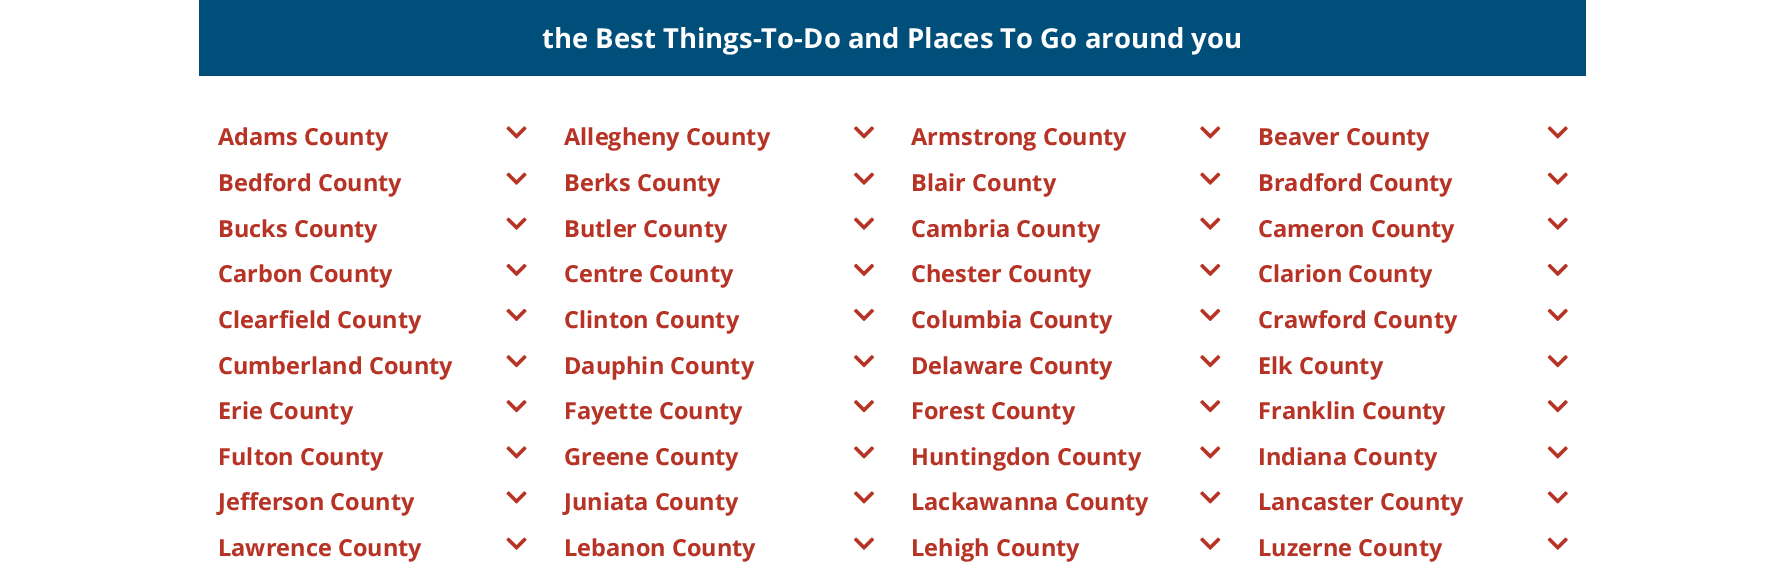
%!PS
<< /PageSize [1785 576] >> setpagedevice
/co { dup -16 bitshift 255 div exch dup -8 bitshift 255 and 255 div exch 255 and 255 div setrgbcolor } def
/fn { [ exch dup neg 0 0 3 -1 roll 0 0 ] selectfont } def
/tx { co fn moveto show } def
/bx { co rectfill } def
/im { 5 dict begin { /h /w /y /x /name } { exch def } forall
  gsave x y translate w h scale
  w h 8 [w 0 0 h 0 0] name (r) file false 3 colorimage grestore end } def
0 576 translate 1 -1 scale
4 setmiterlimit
0 0 1785 576 16#FFFFFF bx
199 0 1387 76 16#004F7B bx
(media/1.raw) 506 126 21 13 im
(media/2.raw) 854 126 20 13 im
(media/3.raw) 1200 126 21 13 im
(media/4.raw) 1547 126 21 13 im
(media/5.raw) 506 172 21 13 im
(media/6.raw) 854 172 20 13 im
(media/7.raw) 1200 172 21 13 im
(media/8.raw) 1547 172 21 13 im
(media/5.raw) 506 217 21 13 im
(media/6.raw) 854 217 20 13 im
(media/7.raw) 1200 217 21 13 im
(media/8.raw) 1547 217 21 13 im
(media/9.raw) 506 263 21 13 im
(media/10.raw) 854 263 20 13 im
(media/11.raw) 1200 263 21 13 im
(media/12.raw) 1547 263 21 13 im
(media/9.raw) 506 308 21 13 im
(media/10.raw) 854 308 20 13 im
(media/11.raw) 1200 308 21 13 im
(media/12.raw) 1547 308 21 13 im
(media/13.raw) 506 355 21 13 im
(media/14.raw) 854 355 20 13 im
(media/15.raw) 1200 355 21 13 im
(media/16.raw) 1547 355 21 13 im
(media/13.raw) 506 400 21 13 im
(media/14.raw) 854 400 20 13 im
(media/15.raw) 1200 400 21 13 im
(media/16.raw) 1547 400 21 13 im
(media/1.raw) 506 446 21 13 im
(media/2.raw) 854 446 20 13 im
(media/3.raw) 1200 446 21 13 im
(media/4.raw) 1547 446 21 13 im
(media/1.raw) 506 491 21 13 im
(media/2.raw) 854 491 20 13 im
(media/3.raw) 1200 491 21 13 im
(media/4.raw) 1547 491 21 13 im
(media/5.raw) 506 537 21 13 im
(media/6.raw) 854 537 20 13 im
(media/7.raw) 1200 537 21 13 im
(media/8.raw) 1547 537 21 13 im
(the Best Things-To-Do and Places To Go around you) 542 48 /OpenSans-Bold 27.5 16#FFFFFF tx
(Adams County) 218 145 /OpenSans-Bold 23.5 16#B63325 tx
(Allegheny County) 564 145 /OpenSans-Bold 23.5 16#B63325 tx
(Armstrong County) 911 145 /OpenSans-Bold 23.5 16#B63325 tx
(Beaver County) 1258 145 /OpenSans-Bold 23.5 16#B63325 tx
(Bedford County) 218 191 /OpenSans-Bold 23.5 16#B63325 tx
(Berks County) 564 191 /OpenSans-Bold 23.5 16#B63325 tx
(Blair County) 911 191 /OpenSans-Bold 23.5 16#B63325 tx
(Bradford County) 1258 191 /OpenSans-Bold 23.5 16#B63325 tx
(Bucks County) 218 237 /OpenSans-Bold 23.5 16#B63325 tx
(Butler County) 564 237 /OpenSans-Bold 23.5 16#B63325 tx
(Cambria County) 911 237 /OpenSans-Bold 23.5 16#B63325 tx
(Cameron County) 1258 237 /OpenSans-Bold 23.5 16#B63325 tx
(Carbon County) 218 282 /OpenSans-Bold 23.5 16#B63325 tx
(Centre County) 564 282 /OpenSans-Bold 23.5 16#B63325 tx
(Chester County) 911 282 /OpenSans-Bold 23.5 16#B63325 tx
(Clarion County) 1258 282 /OpenSans-Bold 23.5 16#B63325 tx
(Clearfield County) 218 328 /OpenSans-Bold 23.5 16#B63325 tx
(Clinton County) 564 328 /OpenSans-Bold 23.5 16#B63325 tx
(Columbia County) 911 328 /OpenSans-Bold 23.5 16#B63325 tx
(Crawford County) 1258 328 /OpenSans-Bold 23.5 16#B63325 tx
(Cumberland County) 218 374 /OpenSans-Bold 23.5 16#B63325 tx
(Dauphin County) 564 374 /OpenSans-Bold 23.5 16#B63325 tx
(Delaware County) 911 374 /OpenSans-Bold 23.5 16#B63325 tx
(Elk County) 1258 374 /OpenSans-Bold 23.5 16#B63325 tx
(Erie County) 218 419 /OpenSans-Bold 23.5 16#B63325 tx
(Fayette County) 564 419 /OpenSans-Bold 23.5 16#B63325 tx
(Forest County) 911 419 /OpenSans-Bold 23.5 16#B63325 tx
(Franklin County) 1258 419 /OpenSans-Bold 23.5 16#B63325 tx
(Fulton County) 218 465 /OpenSans-Bold 23.5 16#B63325 tx
(Greene County) 564 465 /OpenSans-Bold 23.5 16#B63325 tx
(Huntingdon County) 911 465 /OpenSans-Bold 23.5 16#B63325 tx
(Indiana County) 1258 465 /OpenSans-Bold 23.5 16#B63325 tx
(Jefferson County) 218 510 /OpenSans-Bold 23.5 16#B63325 tx
(Juniata County) 564 510 /OpenSans-Bold 23.5 16#B63325 tx
(Lackawanna County) 911 510 /OpenSans-Bold 23.5 16#B63325 tx
(Lancaster County) 1258 510 /OpenSans-Bold 23.5 16#B63325 tx
(Lawrence County) 218 556 /OpenSans-Bold 23.5 16#B63325 tx
(Lebanon County) 564 556 /OpenSans-Bold 23.5 16#B63325 tx
(Lehigh County) 911 556 /OpenSans-Bold 23.5 16#B63325 tx
(Luzerne County) 1258 556 /OpenSans-Bold 23.5 16#B63325 tx
showpage
